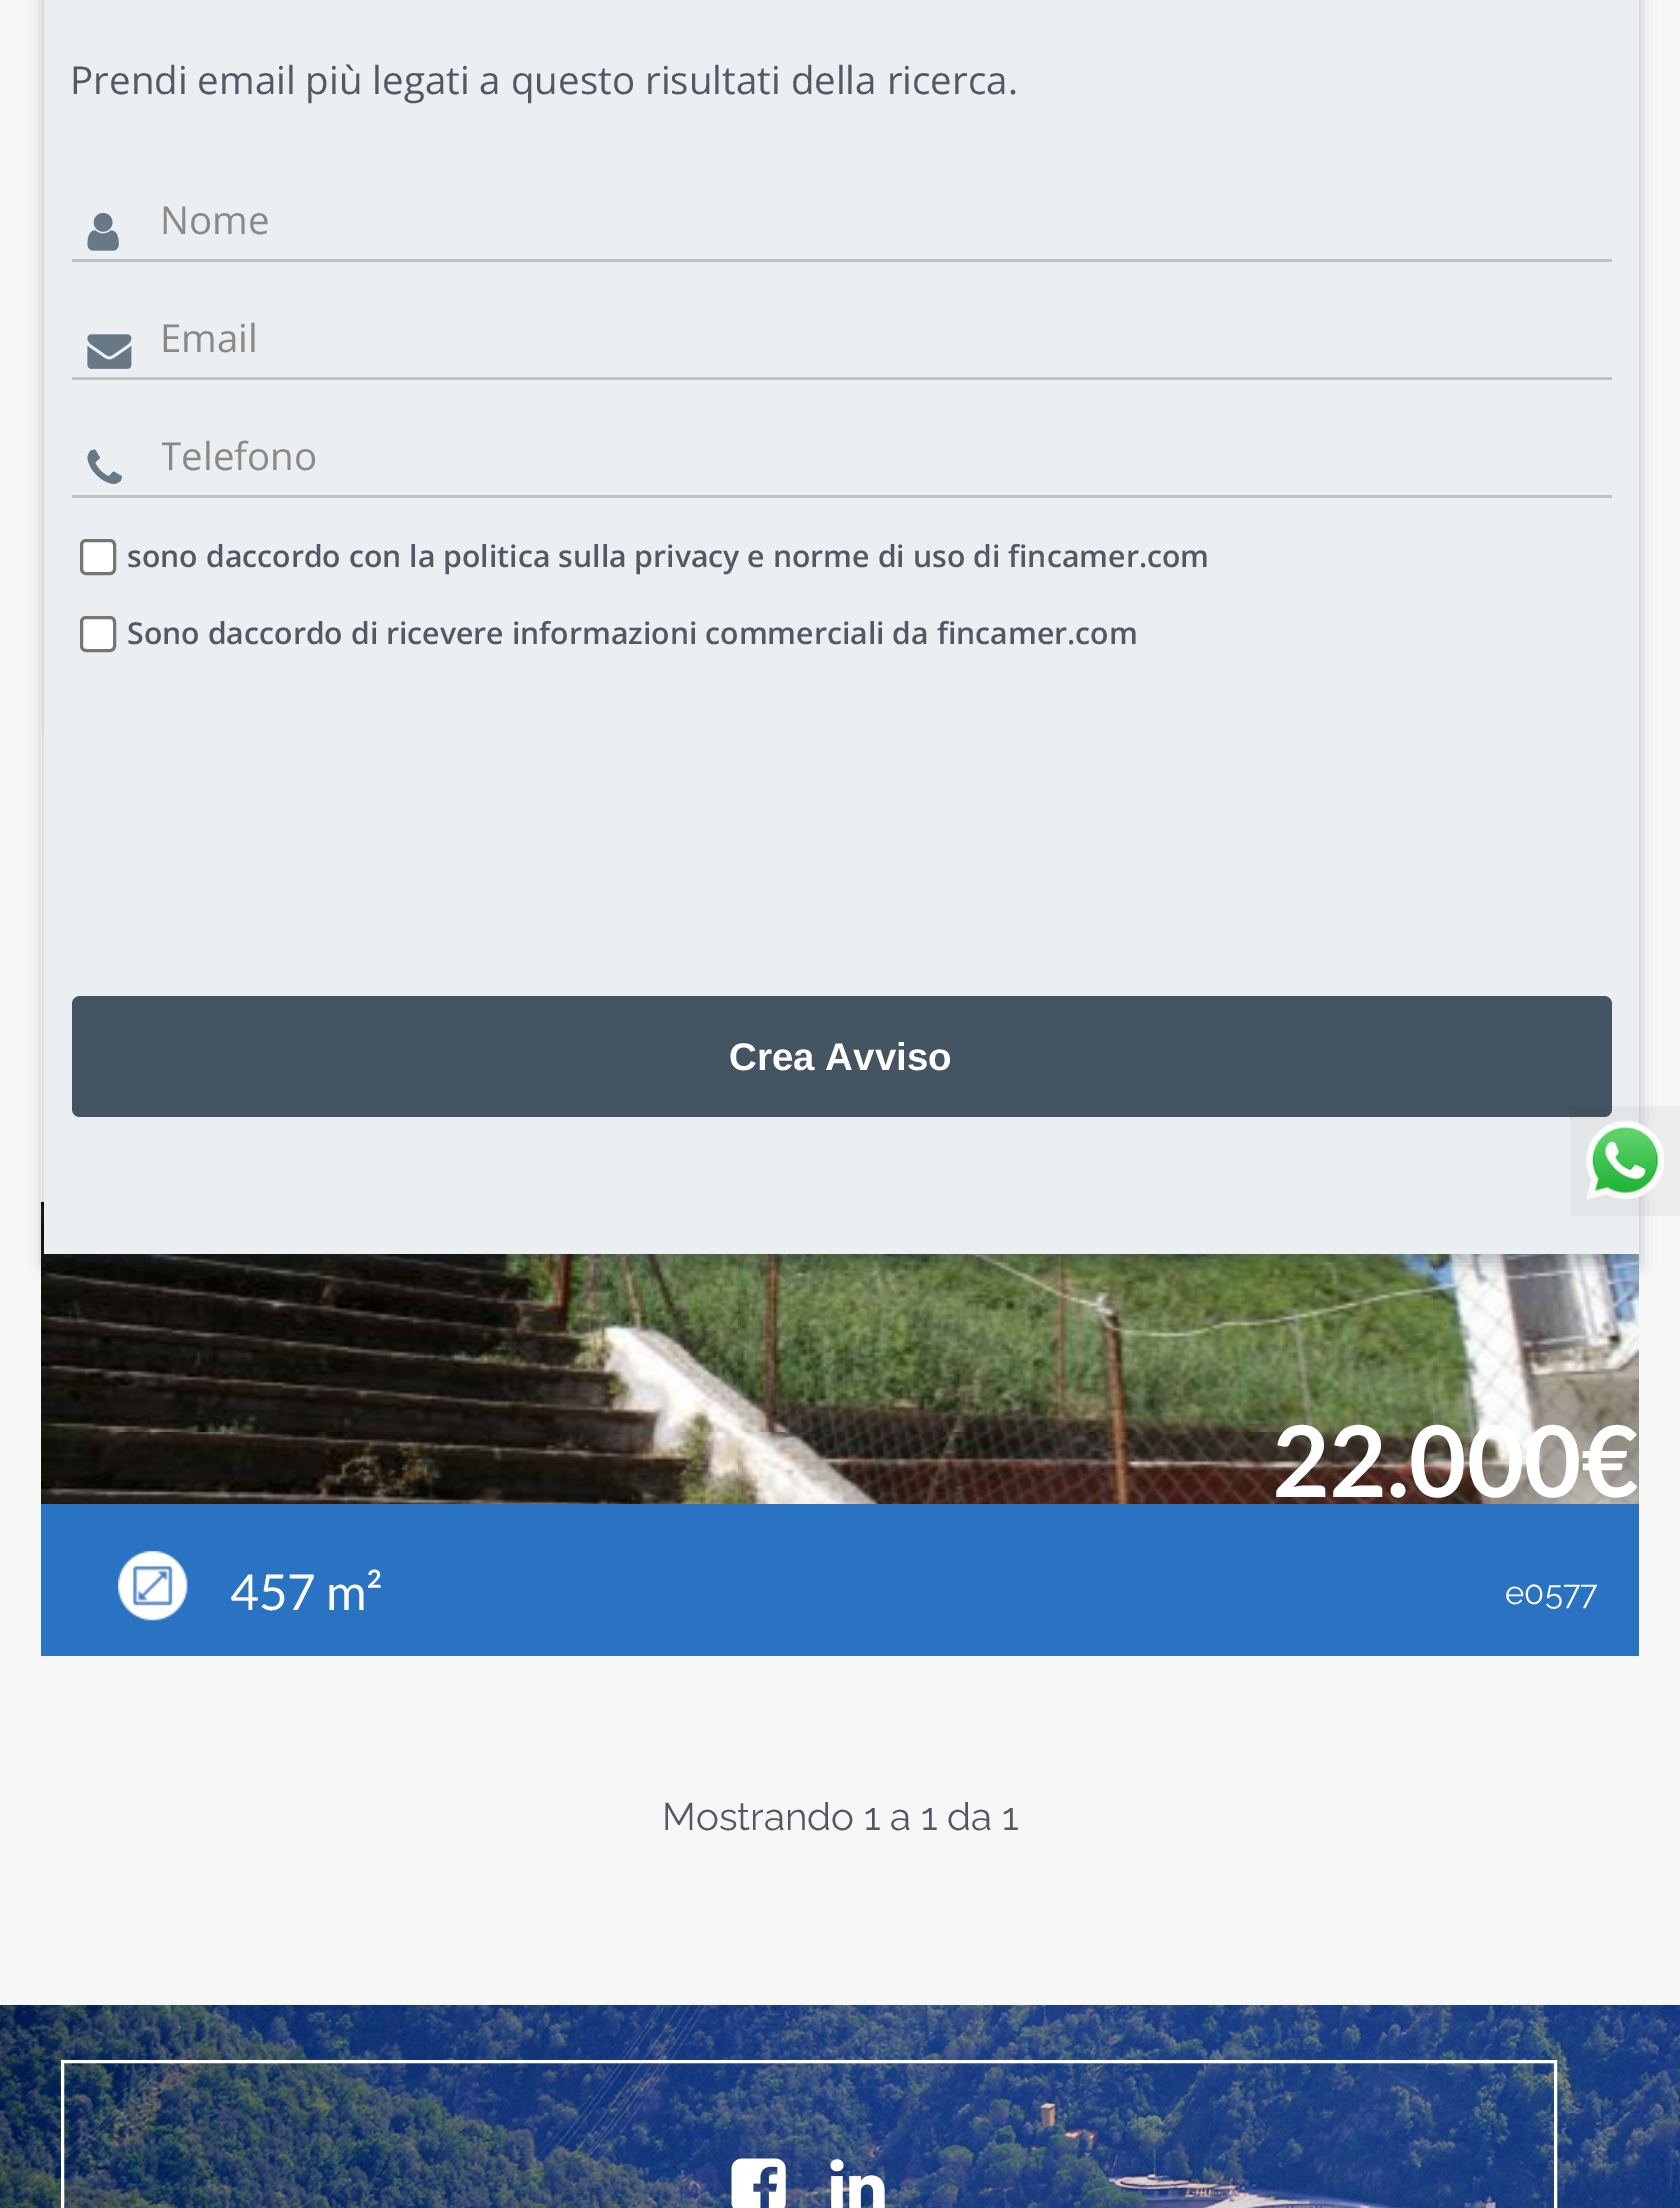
%!PS
<< /PageSize [1680 2208] /PageUsesTransparency true >> setpagedevice
/fl/fill load def
/st/stroke load def
/gs/gsave load def
/gr/grestore load def
/lw/setlinewidth load def
/co { dup -16 bitshift 255 div exch dup -8 bitshift 255 and 255 div exch 255 and 255 div setrgbcolor } def
/fn { [ exch dup neg 0 0 3 -1 roll 0 0 ] selectfont } def
/tx { co fn moveto show } def
/bx { co rectfill } def
/al { dup .setfillconstantalpha .setstrokeconstantalpha } def
/rr { 5 dict begin { /r /h /w /y /x } { exch def } forall
  x r add y moveto x w add y 2 copy h add r arct x w add y h add x 1 index r arct
  x y h add x y r arct x y 2 copy exch w add exch r arct closepath end } def
/sh { 12 dict begin { /a /b /q /h /w /y /x } { exch def } forall gsave /was 0 def
  9 -2 -9 { dup b mul 4 div /e exch def 1 sub .425 mul 2.718 exch exp 1 add a .99 .min exch div /now exch def
    1 1 now sub 1 was sub div sub al /was now def
    w h .min e 2 mul add 0 gt { x e sub y e sub w e 2 mul add h e 2 mul add
      q e add b .6 mul add w h .min 2 div e add .min 0 .max rr fill } if } for grestore end } def
/im { 5 dict begin { /h /w /y /x /name } { exch def } forall
  gsave x y translate w h scale
  w h 8 [w 0 0 h 0 0] name (r) file false 3 colorimage grestore end } def
0 .pushpdf14devicefilter
0 2208 translate 1 -1 scale
4 setmiterlimit
0 0 1680 2208 16#F7F7F7 bx
41 734 3 468 16#FFFFFF bx
(media/5.raw) 41 1202 1598 302 im
16#233238 co
44 -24 1595 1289 0 8 .3 sh
44 0 1595 1254 16#ECEFF1 bx
(media/1.raw) 87 212 32 39 im
72 259 1540 3 16#C2C2C2 bx
(media/2.raw) 87 334 45 35 im
72 377 1540 3 16#C2C2C2 bx
(media/3.raw) 87 449 35 35 im
72 495 1540 3 16#C2C2C2 bx
16#FFFFFF co
81.5 540.5 33 33 4.5 rr gs fl gr
16#767676 co
3 lw
st
16#FFFFFF co
81.5 617.5 33 33 4.5 rr gs fl gr
16#767676 co
st
16#455462 co
72 996 1540 121 8 rr fl
41 1504 1598 152 16#2A72C2 bx
(media/4.raw) 118 1551 70 70 im
0.04 al
1570 1106 110 110 16#000000 bx
1 al
(media/6.raw) 1586 1120 79 80 im
(media/7.raw) 0 2005 1680 203 im
16#FFFFFF co
62.5 2061.5 1493 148 rectstroke
(media/8.raw) 731 2158 55 50 im
(media/9.raw) 830 2159 55 49 im
(Prendi email più legati a questo risultati della ricerca.) 70 94 /OpenSans-Regular 38.5 16#555864 tx
(Nome) 160 234 /OpenSans-Regular 38.5 16#8A8989 tx
(Email) 160 352 /OpenSans-Regular 38.5 16#8A8989 tx
gs
162 429 1422 52 rectclip
(Telefono) 160 470 /OpenSans-Regular 38.5 16#8A8989 tx
gr
(sono daccordo con la politica sulla privacy e norme di uso di fincamer.com) 127 567 /OpenSans-SemiBold 30.25 16#555864 tx
(Sono daccordo di ricevere informazioni commerciali da fincamer.com) 127 644 /OpenSans-SemiBold 30.25 16#555864 tx
(Crea Avviso) 729 1070 /LiberationSans-Bold 38.5 16#FFFFFF tx
(22.000€) 1272 1497 /Lato-Bold 99 16#FFFFFF tx
(457 m²) 230 1610 /Lato-Regular 49.5 16#FFFFFF tx
(e0577) 1505 1604 /Raleway-Thin 33 16#FFFFFF tx
(Mostrando 1 a 1 da 1) 662 1830 /Raleway-Thin 38.5 16#555864 tx
.poppdf14devicefilter showpage
